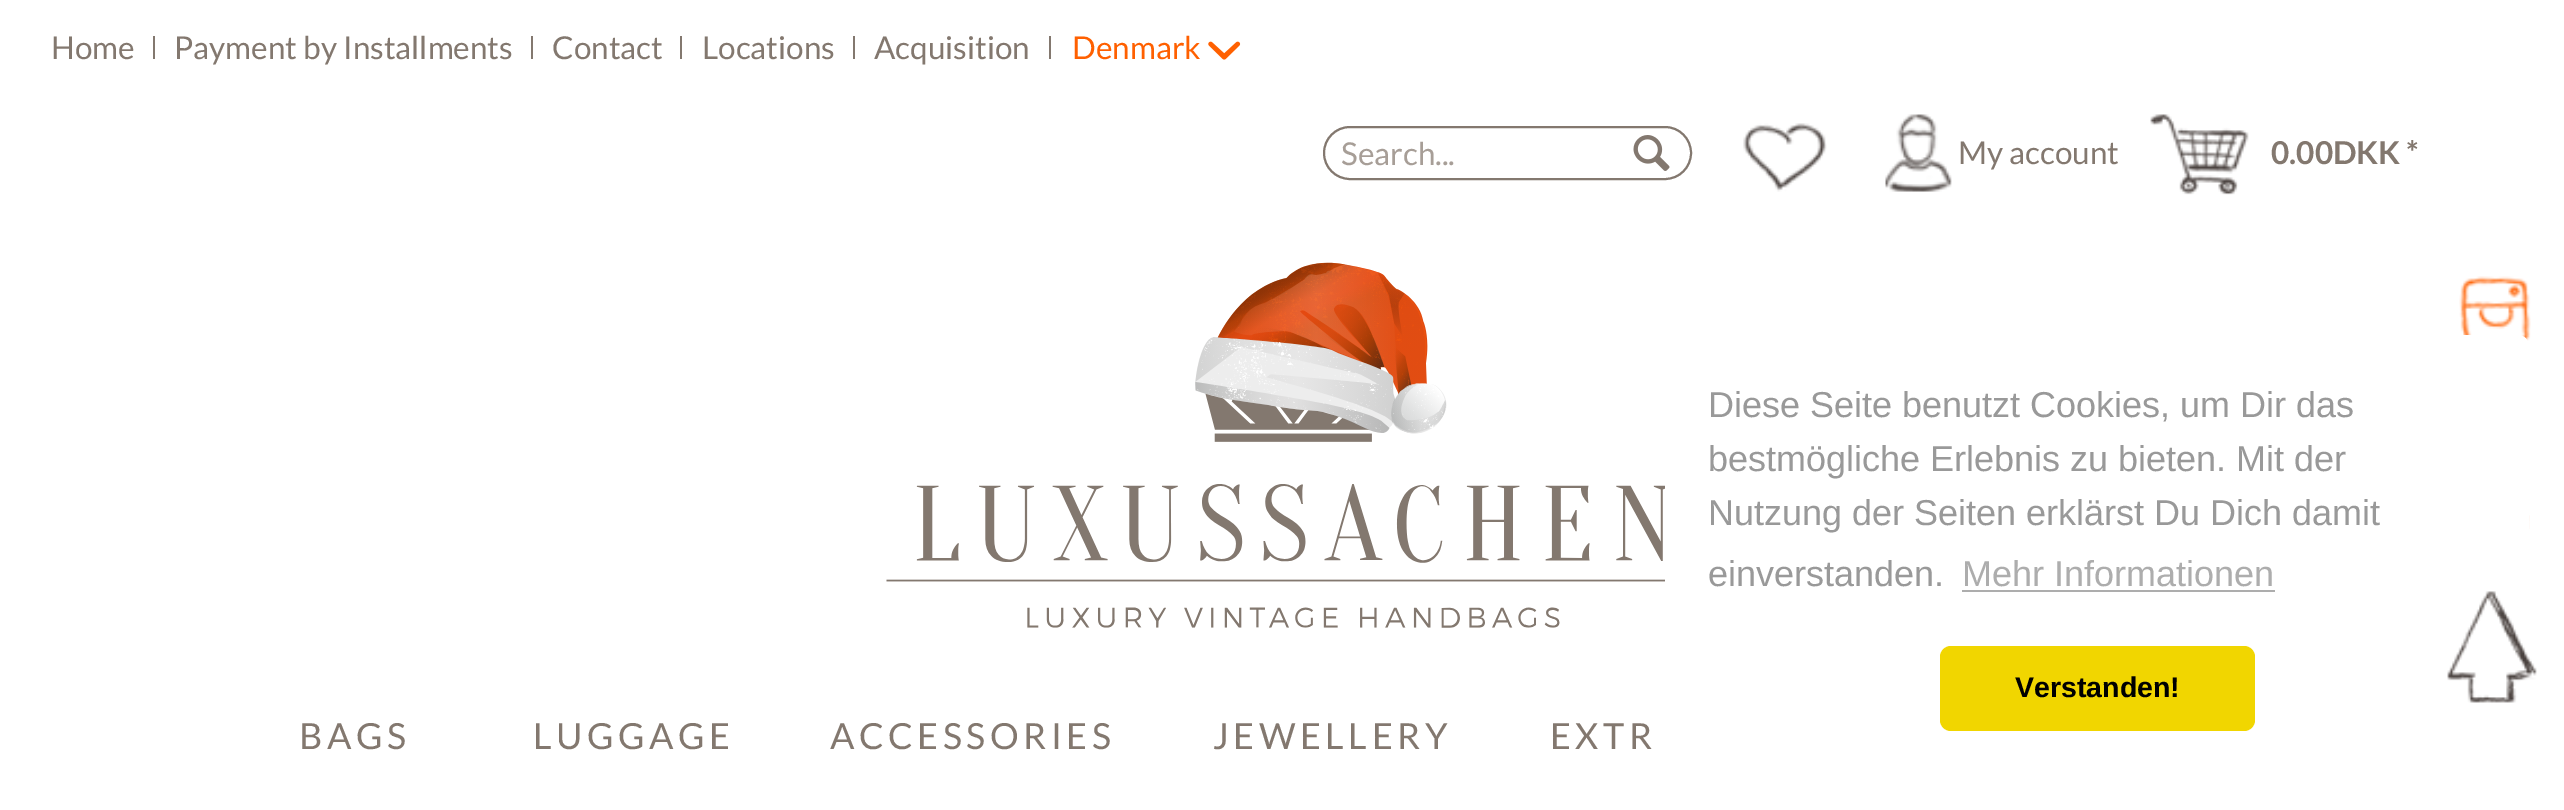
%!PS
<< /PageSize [2564 810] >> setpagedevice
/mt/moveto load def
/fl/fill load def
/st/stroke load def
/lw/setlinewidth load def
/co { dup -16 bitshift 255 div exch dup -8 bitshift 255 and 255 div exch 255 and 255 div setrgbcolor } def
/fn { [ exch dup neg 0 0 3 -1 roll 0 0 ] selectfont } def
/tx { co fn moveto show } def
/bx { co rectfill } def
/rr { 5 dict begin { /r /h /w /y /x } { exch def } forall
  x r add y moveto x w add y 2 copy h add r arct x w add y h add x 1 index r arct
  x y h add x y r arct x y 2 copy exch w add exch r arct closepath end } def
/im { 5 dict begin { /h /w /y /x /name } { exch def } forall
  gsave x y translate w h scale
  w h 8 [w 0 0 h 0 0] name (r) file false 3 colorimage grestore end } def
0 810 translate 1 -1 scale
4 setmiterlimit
0 0 2564 810 16#FFFFFF bx
153 36 2 23 16#83786F bx
531 36 2 23 16#83786F bx
680 36 2 23 16#83786F bx
853 36 2 23 16#83786F bx
1049 36 2 23 16#83786F bx
(media/1.raw) 1208 41 33 19 im
2 lw
1324 127 367 52 26 rr st
(media/2.raw) 1633 135 37 36 im
(media/3.raw) 1743 123 84 69 im
(media/4.raw) 1885 114 67 78 im
(media/5.raw) 2150 114 99 81 im
(media/6.raw) 886 262 779 366 im
(media/8.raw) 2459 276 72 66 im
16#FFFFFF co
1665 335 864 439 11 rr fl
(media/7.raw) 2447 591 90 112 im
(media/9.raw) 2529 515 1 14 im
1962 590 313 2 16#ADADAD bx
16#F1D600 co
1940 646 315 85 11 rr fl
(Home) 51 59 /Lato-Regular 31.5 16#83786F tx
(Payment by Installments) 174 59 /Lato-Regular 31.5 16#83786F tx
(Contact) 552 59 /Lato-Regular 31.5 16#83786F tx
(Locations) 702 59 /Lato-Regular 31.5 16#83786F tx
(Acquisition) 874 59 /Lato-Regular 31.5 16#83786F tx
(Denmark) 1072 59 /Lato-Regular 31.5 16#FF6000 tx
(Search...) 1341 165 /Lato-Regular 31.5 16#A79E97 tx
(My account) 1958 164 /Lato-Regular 31.5 16#83786F tx
(0.00DKK *) 2271 164 /Lato-Bold 31.5 16#83786F tx
/Lato-Regular 36 fn
299 749 mt 4.5 0 (BAGS) ashow
533 749 mt 4.5 0 (LUGGAGE) ashow
830 749 mt 4.5 0 (ACCESSORIES) ashow
1213 749 mt 4.5 0 (JEWELLERY) ashow
1550 749 mt 4.5 0 (EXTR) ashow
(Diese Seite benutzt Cookies, um Dir das) 1708 417 /LiberationSans-Regular 36 16#999999 tx
(bestmögliche Erlebnis zu bieten. Mit der) 1708 471 /LiberationSans-Regular 36 16#999999 tx
(Nutzung der Seiten erklärst Du Dich damit) 1708 525 /LiberationSans-Regular 36 16#999999 tx
(einverstanden.) 1708 586 /LiberationSans-Regular 36 16#999999 tx
(Mehr Informationen) 1962 586 /LiberationSans-Regular 36 16#ADADAD tx
(Verstanden!) 2015 697 /LiberationSans-Bold 28.5 16#000000 tx
showpage
